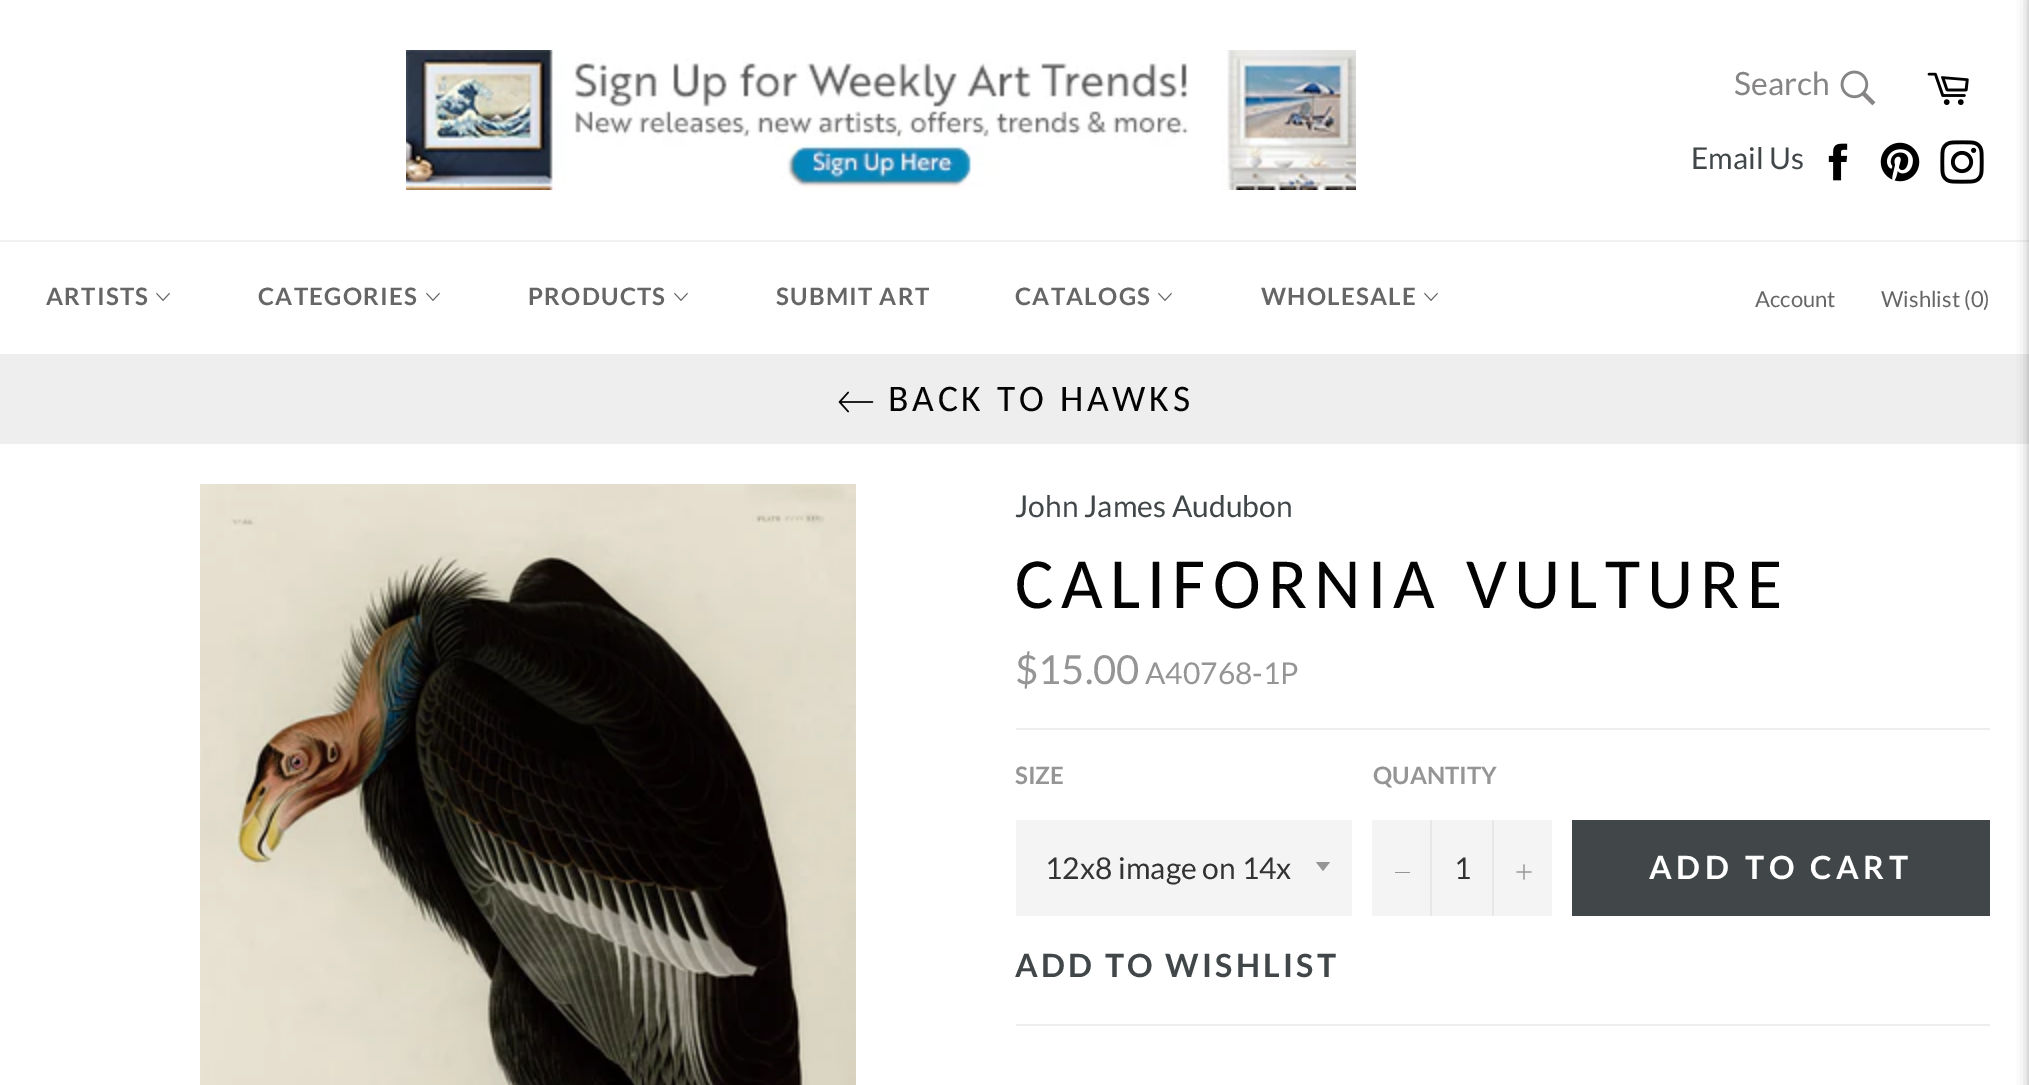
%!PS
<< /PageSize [2029 1085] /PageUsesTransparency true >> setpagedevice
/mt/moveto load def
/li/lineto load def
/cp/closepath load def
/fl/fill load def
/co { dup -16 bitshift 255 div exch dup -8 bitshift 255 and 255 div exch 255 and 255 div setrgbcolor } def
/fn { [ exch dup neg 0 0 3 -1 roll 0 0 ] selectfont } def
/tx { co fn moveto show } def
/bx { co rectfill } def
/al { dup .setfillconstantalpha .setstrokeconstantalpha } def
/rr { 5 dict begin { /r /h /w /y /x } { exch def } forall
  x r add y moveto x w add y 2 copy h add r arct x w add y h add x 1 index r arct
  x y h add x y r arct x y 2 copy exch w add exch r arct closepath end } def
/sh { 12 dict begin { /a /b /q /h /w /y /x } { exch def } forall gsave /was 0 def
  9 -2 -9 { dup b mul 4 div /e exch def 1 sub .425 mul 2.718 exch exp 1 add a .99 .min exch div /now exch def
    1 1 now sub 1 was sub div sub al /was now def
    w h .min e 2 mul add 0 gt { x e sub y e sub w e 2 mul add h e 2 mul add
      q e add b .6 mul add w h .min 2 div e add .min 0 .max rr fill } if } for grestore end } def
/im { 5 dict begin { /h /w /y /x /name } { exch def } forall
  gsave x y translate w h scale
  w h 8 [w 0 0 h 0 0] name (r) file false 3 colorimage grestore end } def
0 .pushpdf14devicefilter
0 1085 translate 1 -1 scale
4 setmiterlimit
0 0 2029 1085 16#FFFFFF bx
(media/1.raw) 406 50 950 140 im
(media/2.raw) 1840 70 36 36 im
(media/3.raw) 1927 72 42 33 im
(media/4.raw) 1828 143 20 38 im
(media/5.raw) 1880 142 40 40 im
(media/6.raw) 1940 140 44 44 im
0 240 2029 2 16#F2F2F2 bx
(media/7.raw) 156 292 14 9 im
(media/7.raw) 426 292 14 9 im
(media/7.raw) 674 292 14 9 im
(media/7.raw) 1158 292 14 9 im
(media/7.raw) 1424 292 14 9 im
0 354 2029 90 16#EEEEEE bx
(media/8.raw) 838 391 36 22 im
(media/9.raw) 200 484 656 601 im
1016 728 974 2 16#EEEEEE bx
1016 820 336 96 16#F4F4F4 bx
16#959595 co
1316 862 mt 1323 871 li 1330 862 li cp fl
1372 820 180 96 16#F4F4F4 bx
1430 820 2 96 16#E7E7E7 bx
1395 872 15 1 16#959595 bx
1492 820 2 96 16#E7E7E7 bx
(media/10.raw) 1516 864 16 16 im
1572 820 418 96 16#414749 bx
1016 1024 974 2 16#EEEEEE bx
16#000000 co
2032 0 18 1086 0 7 .5 sh
(Search) 1734 95 /Lato-Regular 32 16#868484 tx
(Email Us) 1691 169 /Lato-Regular 30 16#414749 tx
/Lato-Bold 24 fn
16#666666 co
46 305 mt 1.25 0 (ARTISTS) ashow
258 305 mt 1.25 0 (CATEGORIES) ashow
528 305 mt 1.25 0 (PRODUCTS) ashow
776 305 mt 1.25 0 (SUBMIT ART) ashow
1015 305 mt 1.25 0 (CATALOGS) ashow
1261 305 mt 1.25 0 (WHOLESALE) ashow
(Account) 1755 307 /Lato-Regular 22 16#666666 tx
(Wishlist \(0\)) 1881 307 /Lato-Regular 22 16#666666 tx
/Carlito-Regular 37.5 fn
16#030303 co
888 411 mt 3.75 0 (BACK TO HAWKS) ashow
(John James Audubon) 1015 517 /Lato-Regular 30 16#414749 tx
/Carlito-Regular 72 fn
16#030303 co
1015 608 mt 7.25 0 (CALIFORNIA VULTURE) ashow
($15.00) 1015 684 /Lato-Regular 40 16#959595 tx
(A40768-1P) 1145 684 /Lato-Regular 30 16#959595 tx
(SIZE) 1015 784 /Lato-Bold 24 16#959595 tx
(12x8 image on 14x) 1045 879 /Lato-Regular 30 16#333333 tx
(QUANTITY) 1373 784 /Lato-Bold 24 16#959595 tx
(1) 1454 879 /Lato-Regular 30 16#333333 tx
/Lato-Bold 32 fn
16#FFFFFF co
1649 879 mt 4.75 0 (ADD TO CART) ashow
16#414749 co
1015 977 mt 3.25 0 (ADD TO WISHLIST) ashow
.poppdf14devicefilter showpage
